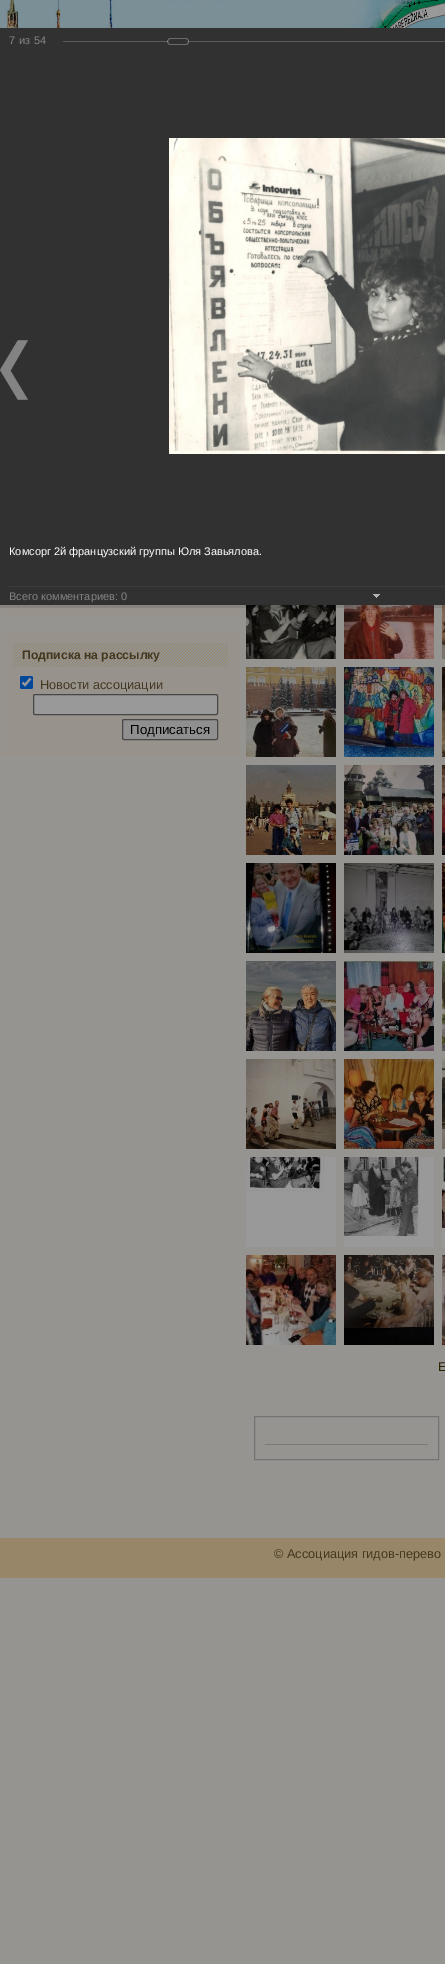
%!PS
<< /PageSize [445 1964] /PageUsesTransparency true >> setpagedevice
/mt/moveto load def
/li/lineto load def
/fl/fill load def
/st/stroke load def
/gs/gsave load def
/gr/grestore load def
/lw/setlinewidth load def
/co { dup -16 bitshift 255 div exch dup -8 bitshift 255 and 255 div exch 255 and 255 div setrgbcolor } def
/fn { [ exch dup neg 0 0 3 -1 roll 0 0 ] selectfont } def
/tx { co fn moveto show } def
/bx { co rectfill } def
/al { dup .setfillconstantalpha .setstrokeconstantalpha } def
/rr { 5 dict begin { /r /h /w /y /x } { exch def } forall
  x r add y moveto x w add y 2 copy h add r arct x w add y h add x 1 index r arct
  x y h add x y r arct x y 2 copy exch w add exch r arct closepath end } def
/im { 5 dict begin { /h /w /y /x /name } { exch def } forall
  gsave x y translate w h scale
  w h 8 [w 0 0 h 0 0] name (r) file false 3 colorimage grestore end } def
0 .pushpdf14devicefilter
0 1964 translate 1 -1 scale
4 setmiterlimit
0 0 445 1964 16#959491 bx
(media/1.raw) 0 0 445 28 im
1 605 239 11 16#97928B bx
(media/7.raw) 246 605 90 54 im
(media/8.raw) 344 605 90 54 im
(media/9.raw) 442 605 3 54 im
0.1 al
0 605 445 3 16#000000 bx
1 al
0 28 445 577 16#313131 bx
63 41 382 1 16#5A5A5A bx
(media/2.raw) 167 38 22 7 im
(media/3.raw) 169 138 276 316 im
9 586 436 1 16#3D3D3D bx
(media/4.raw) 373 594 7 4 im
(media/5.raw) 0 340 28 60 im
1 631 239 125 16#97928B bx
(media/6.raw) 13 643 215 24 im
16#004699 co
20 676 13 13 2 rr fl
16#999999 co
2.1 lw
22.5 682.5 mt 25 685 li 30.5 678.5 li st
33.5 694.5 184 20 1.5 rr gs fl gr
16#474747 co
1 lw
st
16#8F8F8F co
122.5 719.5 95 20 1.5 rr gs fl gr
16#474747 co
st
(media/10.raw) 246 667 90 90 im
(media/11.raw) 344 667 90 90 im
(media/12.raw) 442 667 3 90 im
(media/13.raw) 246 765 90 90 im
(media/14.raw) 344 765 90 90 im
(media/15.raw) 442 765 3 90 im
(media/16.raw) 246 863 90 90 im
(media/17.raw) 344 863 90 90 im
(media/18.raw) 442 863 3 90 im
(media/19.raw) 246 961 90 90 im
(media/20.raw) 344 961 90 90 im
(media/21.raw) 442 961 3 90 im
(media/22.raw) 246 1059 90 90 im
(media/23.raw) 344 1059 90 90 im
(media/24.raw) 442 1059 3 90 im
(media/25.raw) 246 1157 90 90 im
(media/26.raw) 344 1157 90 90 im
(media/27.raw) 442 1157 3 90 im
(media/28.raw) 246 1255 90 90 im
(media/29.raw) 344 1255 90 90 im
(media/30.raw) 442 1255 3 90 im
16#737373 co
254.5 1416.5 184 43 rectstroke
265 1444 163 1 16#7A7A7A bx
0 1538 445 40 16#978667 bx
(7) 9 44 /LiberationSans-Regular 11 16#838383 tx
(из) 19 44 /LiberationSans-Regular 11 16#838383 tx
(54) 34 44 /LiberationSans-Regular 11 16#838383 tx
(Комсорг 2й французский группы Юля Завьялова.) 9 555 /LiberationSans-Regular 11 16#FFFFFF tx
(Всего комментариев: 0) 9 600 /LiberationSans-Regular 11 16#838383 tx
(Подписка на рассылку) 22 659 /LiberationSans-Bold 12.2 16#433720 tx
(Новости ассоциации) 40 689 /LiberationSans-Regular 12.75 16#433720 tx
(Подписаться) 130 734 /LiberationSans-Regular 13.25 16#000000 tx
(Е) 438 1371 /LiberationSans-Regular 12.75 16#2E2303 tx
(© Ассоциация гидов-перево) 274 1558 /LiberationSans-Regular 12.75 16#433720 tx
.poppdf14devicefilter showpage
